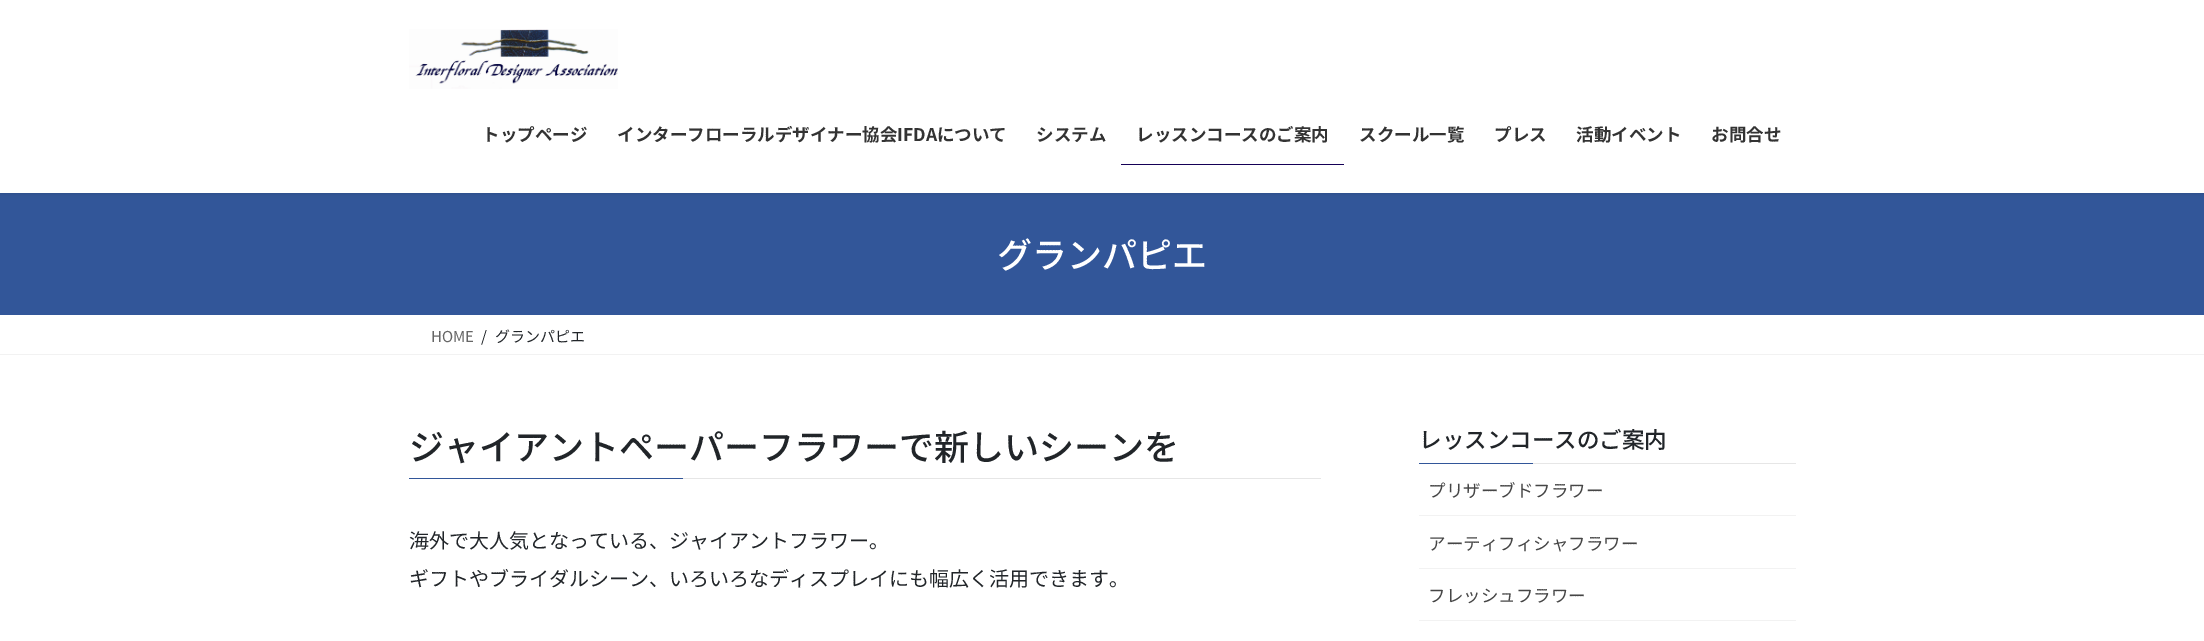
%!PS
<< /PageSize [2204 641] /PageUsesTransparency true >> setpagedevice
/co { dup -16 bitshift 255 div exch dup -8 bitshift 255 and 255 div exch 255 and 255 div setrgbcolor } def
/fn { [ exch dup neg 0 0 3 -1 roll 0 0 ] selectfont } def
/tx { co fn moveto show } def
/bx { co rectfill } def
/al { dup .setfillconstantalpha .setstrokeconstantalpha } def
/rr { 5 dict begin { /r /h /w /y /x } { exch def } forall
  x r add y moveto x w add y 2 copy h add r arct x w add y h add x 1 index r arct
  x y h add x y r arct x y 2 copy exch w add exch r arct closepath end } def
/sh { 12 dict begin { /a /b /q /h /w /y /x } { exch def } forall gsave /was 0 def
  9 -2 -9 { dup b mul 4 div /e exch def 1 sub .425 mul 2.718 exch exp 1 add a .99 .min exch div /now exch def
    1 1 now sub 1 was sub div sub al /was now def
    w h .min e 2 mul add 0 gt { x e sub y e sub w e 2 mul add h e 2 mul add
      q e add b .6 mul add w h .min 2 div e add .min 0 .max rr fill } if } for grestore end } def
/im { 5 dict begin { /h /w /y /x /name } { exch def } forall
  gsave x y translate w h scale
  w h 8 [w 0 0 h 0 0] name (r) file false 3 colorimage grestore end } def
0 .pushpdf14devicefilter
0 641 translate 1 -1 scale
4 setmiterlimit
0 0 2204 641 16#FFFFFF bx
0 193 2204 122 16#325699 bx
16#000000 co
0 1 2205 193 0 2 .1 sh
0 0 2204 193 16#FFFFFF bx
(media/1.raw) 409 29 209 60 im
1121 164 223 1 16#150056 bx
0 354 2204 1 16#F2F2F2 bx
683 478 638 1 16#E6E6E6 bx
409 478 274 1 16#325699 bx
1533 463 263 1 16#E6E6E6 bx
1419 463 114 1 16#325699 bx
1419 515 377 1 16#F2F2F2 bx
1419 568 377 1 16#F2F2F2 bx
1419 620 377 1 16#F2F2F2 bx
(トップページ) 482 141 /NotoSansJP-Bold 17.5 16#333333 tx
(インターフローラルデザイナー協会IFDAについて) 617 141 /NotoSansJP-Bold 17.5 16#333333 tx
(システム) 1036 141 /NotoSansJP-Bold 17.5 16#333333 tx
(レッスンコースのご案内) 1136 141 /NotoSansJP-Bold 17.5 16#333333 tx
(スクール一覧) 1359 141 /NotoSansJP-Bold 17.5 16#333333 tx
(プレス) 1494 141 /NotoSansJP-Bold 17.5 16#333333 tx
(活動イベント) 1576 141 /NotoSansJP-Bold 17.5 16#333333 tx
(お問合せ) 1711 141 /NotoSansJP-Bold 17.5 16#333333 tx
(グランパピエ) 997 268 /NotoSansJP-Medium 35 16#FFFFFF tx
(HOME) 431 342 /NotoSansJP-Regular 15 16#666666 tx
(/) 481 342 /NotoSansJP-Regular 15 16#212529 tx
(グランパピエ) 495 342 /NotoSansJP-Regular 15 16#212529 tx
(ジャイアントペーパーフラワーで新しいシーンを) 409 460 /NotoSansJP-Medium 35 16#212529 tx
(海外で大人気となっている、ジャイアントフラワー。) 409 548 /NotoSansJP-Regular 20 16#212529 tx
(ギフトやブライダルシーン、いろいろなディスプレイにも幅広く活用できます。) 409 586 /NotoSansJP-Regular 20 16#212529 tx
(レッスンコースのご案内) 1419 448 /NotoSansJP-Medium 22.5 16#212529 tx
(プリザーブドフラワー) 1428 497 /NotoSansJP-Regular 17.5 16#464646 tx
(アーティフィシャフラワー) 1428 550 /NotoSansJP-Regular 17.5 16#464646 tx
(フレッシュフラワー) 1428 602 /NotoSansJP-Regular 17.5 16#464646 tx
.poppdf14devicefilter showpage
